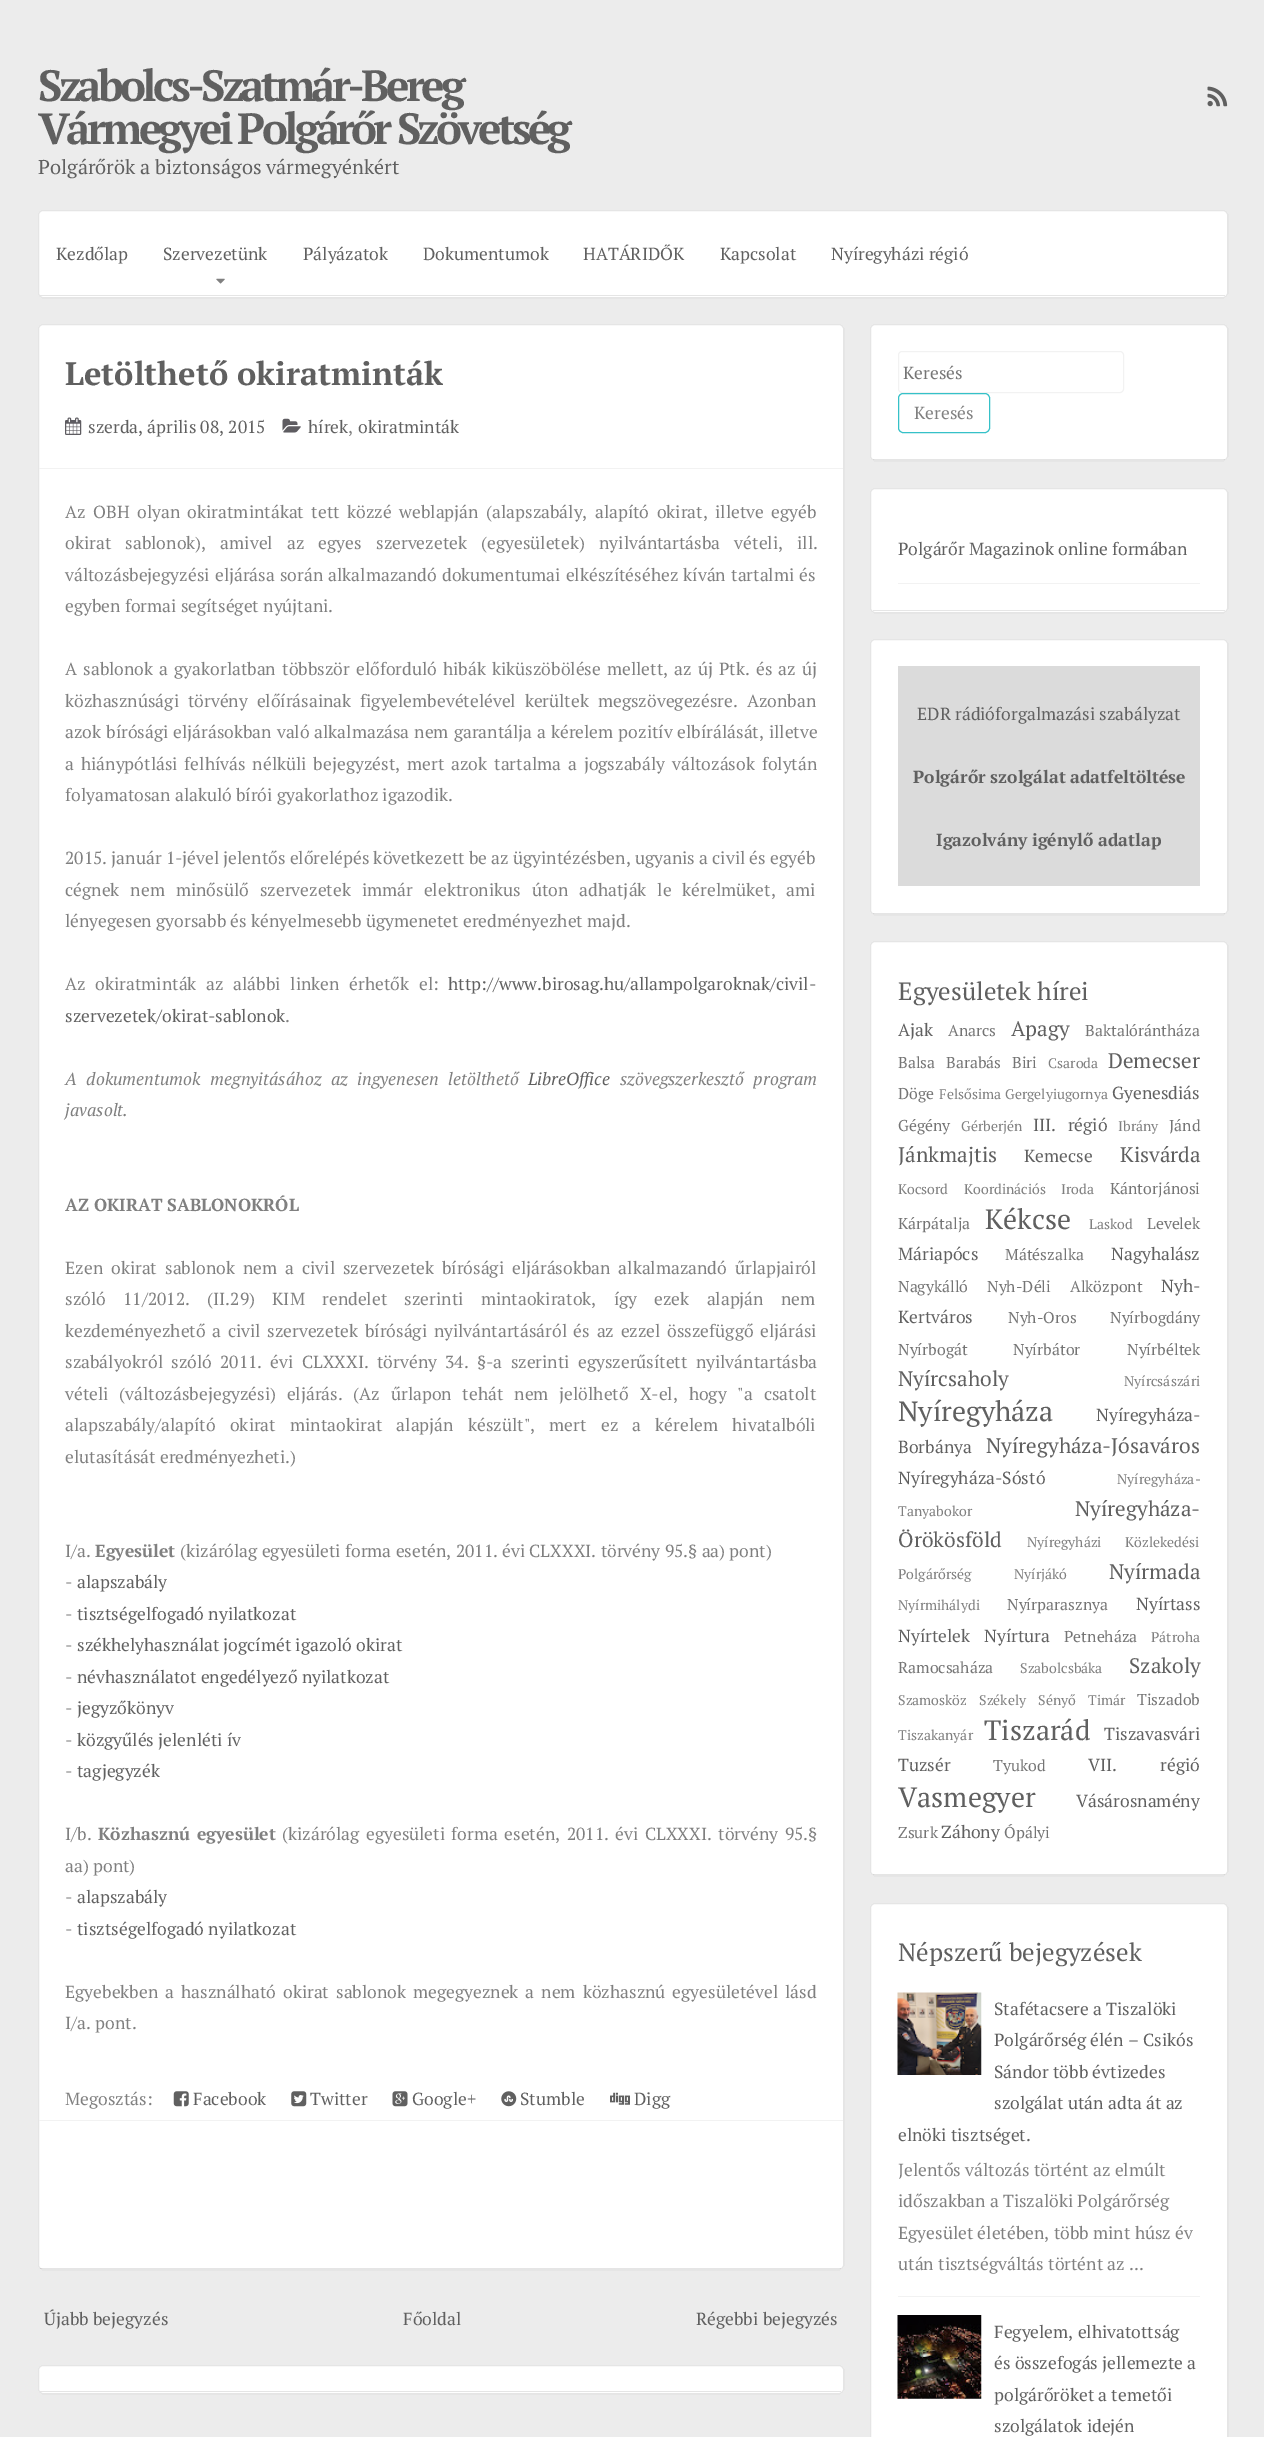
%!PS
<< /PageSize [1264 2437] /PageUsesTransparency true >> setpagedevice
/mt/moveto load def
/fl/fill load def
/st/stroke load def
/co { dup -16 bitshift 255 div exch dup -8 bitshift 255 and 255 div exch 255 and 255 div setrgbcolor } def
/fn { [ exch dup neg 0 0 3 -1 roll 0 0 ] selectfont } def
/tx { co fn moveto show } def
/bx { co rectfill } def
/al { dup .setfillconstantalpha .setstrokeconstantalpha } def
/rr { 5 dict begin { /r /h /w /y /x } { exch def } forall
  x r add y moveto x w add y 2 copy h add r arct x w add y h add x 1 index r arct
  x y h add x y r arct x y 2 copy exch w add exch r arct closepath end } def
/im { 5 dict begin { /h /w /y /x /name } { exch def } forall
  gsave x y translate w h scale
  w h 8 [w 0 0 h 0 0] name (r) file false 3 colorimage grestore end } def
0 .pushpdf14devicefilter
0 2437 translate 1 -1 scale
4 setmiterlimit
0 0 1264 2437 16#ECECEC bx
(media/1.raw) 1207 86 21 21 im
16#FFFFFF co
38 210 1190 88 5 rr fl
0.1 al
16#000000 co
38.5 210.5 1189 87 4.5 rr st
1 al
40 295 1185 1 16#E5E5E5 bx
(media/2.raw) 216 278 9 6 im
16#FFFFFF co
38 324 806 1946 5 rr fl
0.1 al
16#000000 co
38.5 324.5 805 1945 4.5 rr st
40 2268 801 1 16#000000 bx
1 al
39 468 804 1 16#F2F2F2 bx
(media/3.raw) 65 417 17 18 im
(media/4.raw) 282 418 19 15 im
(media/5.raw) 173 2091 16 16 im
(media/6.raw) 291 2091 16 16 im
(media/7.raw) 392 2091 16 16 im
(media/8.raw) 501 2091 16 16 im
(media/9.raw) 610 2092 20 13 im
39 2120 804 1 16#F2F2F2 bx
16#FFFFFF co
38 2365 806 29 5 rr fl
0.1 al
16#000000 co
38.5 2365.5 805 28 4.5 rr st
1 al
40 2391 801 1 16#E5E5E5 bx
16#FFFFFF co
870 324 358 137 5 rr fl
0.1 al
16#000000 co
870.5 324.5 357 136 4.5 rr st
873 459 352 1 16#000000 bx
1 al
16#F2F2F2 co
898.5 351.5 225 41 3.5 rr st
16#36C1C8 co
898.5 393.5 91 39 4.5 rr st
16#FFFFFF co
870 488 358 125 5 rr fl
0.1 al
16#000000 co
870.5 488.5 357 124 4.5 rr st
1 al
873 610 352 1 16#E6E6E6 bx
898 583 302 1 16#F2F2F2 bx
16#FFFFFF co
870 639 358 276 5 rr fl
0.1 al
16#000000 co
870.5 639.5 357 275 4.5 rr st
873 913 352 1 16#000000 bx
1 al
898 666 302 220 16#DBDBDB bx
16#FFFFFF co
870 941 358 935 5 rr fl
0.1 al
16#000000 co
870.5 941.5 357 934 4.5 rr st
873 1874 352 1 16#000000 bx
1 al
16#FFFFFF co
870 1903 358 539 5 rr fl
0.1 al
16#000000 co
870.5 1903.5 357 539 4.5 rr st
1 al
898 2296 302 1 16#F2F2F2 bx
(media/10.raw) 897 1992 85 83 im
(media/11.raw) 897 2315 85 84 im
/PTSerif-Bold 43.75 fn
16#606060 co
38 101 mt -3.75 0 (Szabolcs-Szatmár-Bereg) ashow
38 144 mt -3.75 0 (Vármegyei Polgárőr Szövetség) ashow
(Polgárőrök a biztonságos vármegyénkért) 38 174 /PTSerif-Regular 20 16#606060 tx
(Kezdőlap) 56 260 /PTSerif-Regular 17.5 16#606060 tx
(Szervezetünk) 163 260 /PTSerif-Regular 17.5 16#606060 tx
(Pályázatok) 303 260 /PTSerif-Regular 17.5 16#606060 tx
(Dokumentumok) 423 260 /PTSerif-Regular 17.5 16#606060 tx
(HATÁRIDŐK) 583 260 /PTSerif-Regular 17.5 16#606060 tx
(Kapcsolat) 720 260 /PTSerif-Regular 17.5 16#606060 tx
(Nyíregyházi régió) 831 260 /PTSerif-Regular 17.5 16#606060 tx
(Letölthető okiratminták) 65 385 /PTSerif-Bold 32.5 16#606060 tx
(szerda, április 08, 2015) 88 433 /PTSerif-Regular 17.5 16#606060 tx
(hírek) 308 433 /PTSerif-Regular 17.5 16#606060 tx
(,) 348 433 /PTSerif-Regular 17.5 16#808080 tx
(okiratminták) 358 433 /PTSerif-Regular 17.5 16#606060 tx
16#808080 co
65 518 mt 3.25 0 32 (Az OBH olyan okiratmintákat tett közzé weblapján \(alapszabály, alapító okirat, illetve egyéb) widthshow
65 549 mt 10 0 32 (okirat sablonok\), amivel az egyes szervezetek \(egyesületek\) nyilvántartásba vételi, ill.) widthshow
65 581 mt 1 0 32 (változásbejegyzési eljárása során alkalmazandó dokumentumai elkészítéséhez kíván tartalmi és) widthshow
(egyben formai segítséget nyújtani.) 65 612 /PTSerif-Regular 17.5 16#808080 tx
65 675 mt 1.9 0 32 (A sablonok a gyakorlatban többször előforduló hibák kiküszöbölése mellett, az új Ptk. és az új) widthshow
65 707 mt 4.75 0 32 (közhasznúsági törvény előírásainak figyelembevételével kerültek megszövegezésre. Azonban) widthshow
65 738 mt .75 0 32 (azok bírósági eljárásokban való alkalmazása nem garantálja a kérelem pozitív elbírálását, illetve) widthshow
65 770 mt 2.75 0 32 (a hiánypótlási felhívás nélküli bejegyzést, mert azok tartalma a jogszabály változások folytán) widthshow
(folyamatosan alakuló bírói gyakorlathoz igazodik.) 65 801 /PTSerif-Regular 17.5 16#808080 tx
(2015. január 1-jével jelentős előrelépés következett be az ügyintézésben, ugyanis a civil és egyéb) 65 864 /PTSerif-Regular 17.5 16#808080 tx
65 896 mt 6.75 0 32 (cégnek nem minősülő szervezetek immár elektronikus úton adhatják le kérelmüket, ami) widthshow
(lényegesen gyorsabb és kényelmesebb ügymenetet eredményezhet majd.) 65 927 /PTSerif-Regular 17.5 16#808080 tx
65 990 mt 5.5 0 32 (Az okiratminták az alábbi linken érhetők el:) widthshow
(http://www.birosag.hu/allampolgaroknak/civil-) 448 990 /PTSerif-Regular 17.5 16#606060 tx
(szervezetek/okirat-sablonok) 65 1022 /PTSerif-Regular 17.5 16#606060 tx
(.) 285 1022 /PTSerif-Regular 17.5 16#808080 tx
/PTSerif-Italic 17.5 fn
65 1085 mt 5.25 0 32 (A dokumentumok megnyitásához az ingyenesen letölthető) widthshow
(LibreOffice) 528 1085 /PTSerif-Italic 17.5 16#606060 tx
16#808080 co
620 1085 mt 5.25 0 32 (szövegszerkesztő program) widthshow
(javasolt.) 65 1116 /PTSerif-Italic 17.5 16#808080 tx
(AZ OKIRAT SABLONOKRÓL) 65 1211 /PTSerif-Bold 17.5 16#808080 tx
/PTSerif-Regular 17.5 fn
65 1274 mt 3.75 0 32 (Ezen okirat sablonok nem a civil szervezetek bírósági eljárásokban alkalmazandó űrlapjairól) widthshow
65 1305 mt 13 0 32 (szóló 11/2012. \(II.29\) KIM rendelet szerinti mintaokiratok, így ezek alapján nem) widthshow
65 1337 mt 2.4 0 32 (kezdeményezhető a civil szervezetek bírósági nyilvántartásáról és az ezzel összefüggő eljárási) widthshow
65 1368 mt 4 0 32 (szabályokról szóló 2011. évi CLXXXI. törvény 34. §-a szerinti egyszerűsített nyilvántartásba) widthshow
65 1400 mt 6.6 0 32 (vételi \(változásbejegyzési\) eljárás. \(Az űrlapon tehát nem jelölhető X-el, hogy "a csatolt) widthshow
65 1431 mt 10 0 32 (alapszabály/alapító okirat mintaokirat alapján készült", mert ez a kérelem hivatalbóli) widthshow
(elutasítását eredményezheti.\)) 65 1463 /PTSerif-Regular 17.5 16#808080 tx
(I/a.) 65 1557 /PTSerif-Regular 17.5 16#808080 tx
(Egyesület) 95 1557 /PTSerif-Bold 17.5 16#808080 tx
(\(kizárólag egyesületi forma esetén, 2011. évi CLXXXI. törvény 95.§ aa\) pont\)) 180 1557 /PTSerif-Regular 17.5 16#808080 tx
(-) 65 1588 /PTSerif-Regular 17.5 16#808080 tx
(alapszabály) 77 1588 /PTSerif-Regular 17.5 16#606060 tx
(-) 65 1620 /PTSerif-Regular 17.5 16#808080 tx
(tisztségelfogadó nyilatkozat) 77 1620 /PTSerif-Regular 17.5 16#606060 tx
(-) 65 1651 /PTSerif-Regular 17.5 16#808080 tx
(székhelyhasználat jogcímét igazoló okirat) 77 1651 /PTSerif-Regular 17.5 16#606060 tx
(-) 65 1683 /PTSerif-Regular 17.5 16#808080 tx
(névhasználatot engedélyező nyilatkozat) 77 1683 /PTSerif-Regular 17.5 16#606060 tx
(-) 65 1714 /PTSerif-Regular 17.5 16#808080 tx
(jegyzőkönyv) 77 1714 /PTSerif-Regular 17.5 16#606060 tx
(-) 65 1746 /PTSerif-Regular 17.5 16#808080 tx
(közgyűlés jelenléti ív) 77 1746 /PTSerif-Regular 17.5 16#606060 tx
(-) 65 1777 /PTSerif-Regular 17.5 16#808080 tx
(tagjegyzék) 77 1777 /PTSerif-Regular 17.5 16#606060 tx
(I/b.) 65 1840 /PTSerif-Regular 17.5 16#808080 tx
/PTSerif-Bold 17.5 fn
98 1840 mt 2.25 0 32 (Közhasznú egyesület) widthshow
/PTSerif-Regular 17.5 fn
282 1840 mt 2.25 0 32 (\(kizárólag egyesületi forma esetén, 2011. évi CLXXXI. törvény 95.§) widthshow
(aa\) pont\)) 65 1872 /PTSerif-Regular 17.5 16#808080 tx
(-) 65 1903 /PTSerif-Regular 17.5 16#808080 tx
(alapszabály) 77 1903 /PTSerif-Regular 17.5 16#606060 tx
(-) 65 1935 /PTSerif-Regular 17.5 16#808080 tx
(tisztségelfogadó nyilatkozat) 77 1935 /PTSerif-Regular 17.5 16#606060 tx
16#808080 co
65 1998 mt 2.75 0 32 (Egyebekben a használható okirat sablonok megegyeznek a nem közhasznú egyesületével lásd) widthshow
(I/a. pont.) 65 2029 /PTSerif-Regular 17.5 16#808080 tx
(Megosztás:) 65 2105 /PTSerif-Regular 17.5 16#808080 tx
(Facebook) 193 2105 /PTSerif-Regular 17.5 16#606060 tx
(Twitter) 310 2105 /PTSerif-Regular 17.5 16#606060 tx
(Google+) 412 2105 /PTSerif-Regular 17.5 16#606060 tx
(Stumble) 520 2105 /PTSerif-Regular 17.5 16#606060 tx
(Digg) 634 2105 /PTSerif-Regular 17.5 16#606060 tx
(Újabb bejegyzés) 44 2325 /PTSerif-Regular 17.5 16#606060 tx
(Főoldal) 403 2325 /PTSerif-Regular 17.5 16#606060 tx
(Régebbi bejegyzés) 696 2325 /PTSerif-Regular 17.5 16#606060 tx
(Keresés) 903 379 /PTSerif-Regular 17.5 16#757575 tx
(Keresés) 914 419 /PTSerif-Regular 17.5 16#808080 tx
(Polgárőr Magazinok online formában) 898 555 /PTSerif-Regular 17.5 16#606060 tx
(EDR rádióforgalmazási szabályzat) 917 720 /PTSerif-Regular 17.5 16#606060 tx
(Polgárőr szolgálat adatfeltöltése) 913 783 /PTSerif-Bold 17.5 16#606060 tx
(Igazolvány igénylő adatlap) 936 846 /PTSerif-Bold 17.5 16#606060 tx
(Egyesületek hírei) 898 1000 /PTSerif-Regular 25 16#606060 tx
(Ajak) 898 1036 /PTSerif-Regular 17.5 16#606060 tx
(Anarcs) 948 1036 /PTSerif-Regular 15.75 16#757575 tx
(Apagy) 1011 1036 /PTSerif-Regular 21 16#606060 tx
(Baktalórántháza) 1085 1036 /PTSerif-Regular 15.75 16#757575 tx
(Balsa) 898 1068 /PTSerif-Regular 15.75 16#757575 tx
(Barabás) 946 1068 /PTSerif-Regular 15.75 16#757575 tx
(Biri) 1012 1068 /PTSerif-Regular 15.75 16#757575 tx
(Csaroda) 1048 1068 /PTSerif-Regular 14 16#808080 tx
(Demecser) 1108 1068 /PTSerif-Regular 21 16#606060 tx
(Döge) 898 1099 /PTSerif-Regular 15.75 16#757575 tx
(Felsősima) 939 1099 /PTSerif-Regular 14 16#808080 tx
(Gergelyiugornya) 1005 1099 /PTSerif-Regular 14 16#808080 tx
(Gyenesdiás) 1112 1099 /PTSerif-Regular 17.5 16#606060 tx
(Gégény) 898 1131 /PTSerif-Regular 15.75 16#757575 tx
(Gérberjén) 961 1131 /PTSerif-Regular 14 16#808080 tx
/PTSerif-Regular 17.5 fn
16#606060 co
1033 1131 mt 7 0 32 (III. régió) widthshow
(Ibrány) 1118 1131 /PTSerif-Regular 14 16#808080 tx
(Jánd) 1169 1131 /PTSerif-Regular 15.75 16#757575 tx
(Jánkmajtis) 898 1162 /PTSerif-Regular 21 16#606060 tx
(Kemecse) 1024 1162 /PTSerif-Regular 17.5 16#606060 tx
(Kisvárda) 1120 1162 /PTSerif-Regular 21 16#606060 tx
(Kocsord) 898 1194 /PTSerif-Regular 14 16#808080 tx
964 1194 mt 12 0 32 (Koordinációs Iroda) widthshow
(Kántorjánosi) 1110 1194 /PTSerif-Regular 15.75 16#757575 tx
(Kárpátalja) 898 1229 /PTSerif-Regular 15.75 16#757575 tx
(Kékcse) 985 1229 /PTSerif-Regular 28 16#606060 tx
(Laskod) 1089 1229 /PTSerif-Regular 14 16#808080 tx
(Levelek) 1147 1229 /PTSerif-Regular 15.75 16#757575 tx
(Máriapócs) 898 1260 /PTSerif-Regular 17.5 16#606060 tx
(Mátészalka) 1005 1260 /PTSerif-Regular 15.75 16#757575 tx
(Nagyhalász) 1111 1260 /PTSerif-Regular 17.5 16#606060 tx
(Nagykálló) 898 1292 /PTSerif-Regular 15.75 16#757575 tx
987 1292 mt 15 0 32 (Nyh-Déli Alközpont) widthshow
(Nyh-) 1161 1292 /PTSerif-Regular 17.5 16#606060 tx
(Kertváros) 898 1323 /PTSerif-Regular 17.5 16#606060 tx
(Nyh-Oros) 1008 1323 /PTSerif-Regular 15.75 16#757575 tx
(Nyírbogdány) 1110 1323 /PTSerif-Regular 15.75 16#757575 tx
(Nyírbogát) 898 1355 /PTSerif-Regular 15.75 16#757575 tx
(Nyírbátor) 1013 1355 /PTSerif-Regular 15.75 16#757575 tx
(Nyírbéltek) 1127 1355 /PTSerif-Regular 15.75 16#757575 tx
(Nyírcsaholy) 898 1386 /PTSerif-Regular 21 16#606060 tx
(Nyírcsászári) 1124 1386 /PTSerif-Regular 14 16#808080 tx
(Nyíregyháza) 898 1421 /PTSerif-Regular 28 16#606060 tx
(Nyíregyháza-) 1096 1421 /PTSerif-Regular 17.5 16#606060 tx
(Borbánya) 898 1453 /PTSerif-Regular 17.5 16#606060 tx
(Nyíregyháza-Jósaváros) 986 1453 /PTSerif-Regular 21 16#606060 tx
(Nyíregyháza-Sóstó) 898 1484 /PTSerif-Regular 17.5 16#606060 tx
(Nyíregyháza-) 1117 1484 /PTSerif-Regular 14 16#808080 tx
(Tanyabokor) 898 1516 /PTSerif-Regular 14 16#808080 tx
(Nyíregyháza-) 1075 1516 /PTSerif-Regular 21 16#606060 tx
(Örökösföld) 898 1547 /PTSerif-Regular 21 16#606060 tx
/PTSerif-Regular 14 fn
16#808080 co
1027 1547 mt 20 0 32 (Nyíregyházi Közlekedési) widthshow
(Polgárőrség) 898 1579 /PTSerif-Regular 14 16#808080 tx
(Nyírjákó) 1014 1579 /PTSerif-Regular 14 16#808080 tx
(Nyírmada) 1109 1579 /PTSerif-Regular 21 16#606060 tx
(Nyírmihálydi) 898 1610 /PTSerif-Regular 14 16#808080 tx
(Nyírparasznya) 1007 1610 /PTSerif-Regular 15.75 16#757575 tx
(Nyírtass) 1136 1610 /PTSerif-Regular 17.5 16#606060 tx
(Nyírtelek) 898 1642 /PTSerif-Regular 17.5 16#606060 tx
(Nyírtura) 984 1642 /PTSerif-Regular 17.5 16#606060 tx
(Petneháza) 1064 1642 /PTSerif-Regular 15.75 16#757575 tx
(Pátroha) 1151 1642 /PTSerif-Regular 14 16#808080 tx
(Ramocsaháza) 898 1673 /PTSerif-Regular 15.75 16#757575 tx
(Szabolcsbáka) 1020 1673 /PTSerif-Regular 14 16#808080 tx
(Szakoly) 1129 1673 /PTSerif-Regular 21 16#606060 tx
(Szamosköz) 898 1705 /PTSerif-Regular 14 16#808080 tx
(Székely) 979 1705 /PTSerif-Regular 14 16#808080 tx
(Sényő) 1038 1705 /PTSerif-Regular 14 16#808080 tx
(Timár) 1088 1705 /PTSerif-Regular 14 16#808080 tx
(Tiszadob) 1137 1705 /PTSerif-Regular 15.75 16#757575 tx
(Tiszakanyár) 898 1740 /PTSerif-Regular 14 16#808080 tx
(Tiszarád) 984 1740 /PTSerif-Regular 28 16#606060 tx
(Tiszavasvári) 1104 1740 /PTSerif-Regular 17.5 16#606060 tx
(Tuzsér) 898 1771 /PTSerif-Regular 17.5 16#606060 tx
(Tyukod) 993 1771 /PTSerif-Regular 15.75 16#757575 tx
/PTSerif-Regular 17.5 fn
16#606060 co
1088 1771 mt 39 0 32 (VII. régió) widthshow
(Vasmegyer) 898 1807 /PTSerif-Regular 28 16#606060 tx
(Vásárosnamény) 1076 1807 /PTSerif-Regular 17.5 16#606060 tx
(Zsurk) 898 1838 /PTSerif-Regular 15.75 16#757575 tx
(Záhony) 941 1838 /PTSerif-Regular 17.5 16#606060 tx
(Ópályi) 1004 1838 /PTSerif-Regular 15.75 16#757575 tx
(Népszerű bejegyzések) 898 1961 /PTSerif-Regular 25 16#606060 tx
(Stafétacsere a Tiszalöki) 994 2015 /PTSerif-Regular 17.5 16#606060 tx
(Polgárőrség élén – Csikós) 994 2046 /PTSerif-Regular 17.5 16#606060 tx
(Sándor több évtizedes) 994 2078 /PTSerif-Regular 17.5 16#606060 tx
(szolgálat után adta át az) 994 2109 /PTSerif-Regular 17.5 16#606060 tx
(elnöki tisztséget.) 898 2141 /PTSerif-Regular 17.5 16#606060 tx
(Jelentős változás történt az elmúlt) 898 2176 /PTSerif-Regular 17.5 16#808080 tx
(időszakban a Tiszalöki Polgárőrség) 898 2207 /PTSerif-Regular 17.5 16#808080 tx
(Egyesület életében, több mint húsz év) 898 2239 /PTSerif-Regular 17.5 16#808080 tx
(után tisztségváltás történt az ...) 898 2270 /PTSerif-Regular 17.5 16#808080 tx
(Fegyelem, elhivatottság) 994 2338 /PTSerif-Regular 17.5 16#606060 tx
(és összefogás jellemezte a) 994 2369 /PTSerif-Regular 17.5 16#606060 tx
(polgárőröket a temetői) 994 2401 /PTSerif-Regular 17.5 16#606060 tx
(szolgálatok idején) 994 2432 /PTSerif-Regular 17.5 16#606060 tx
.poppdf14devicefilter showpage
